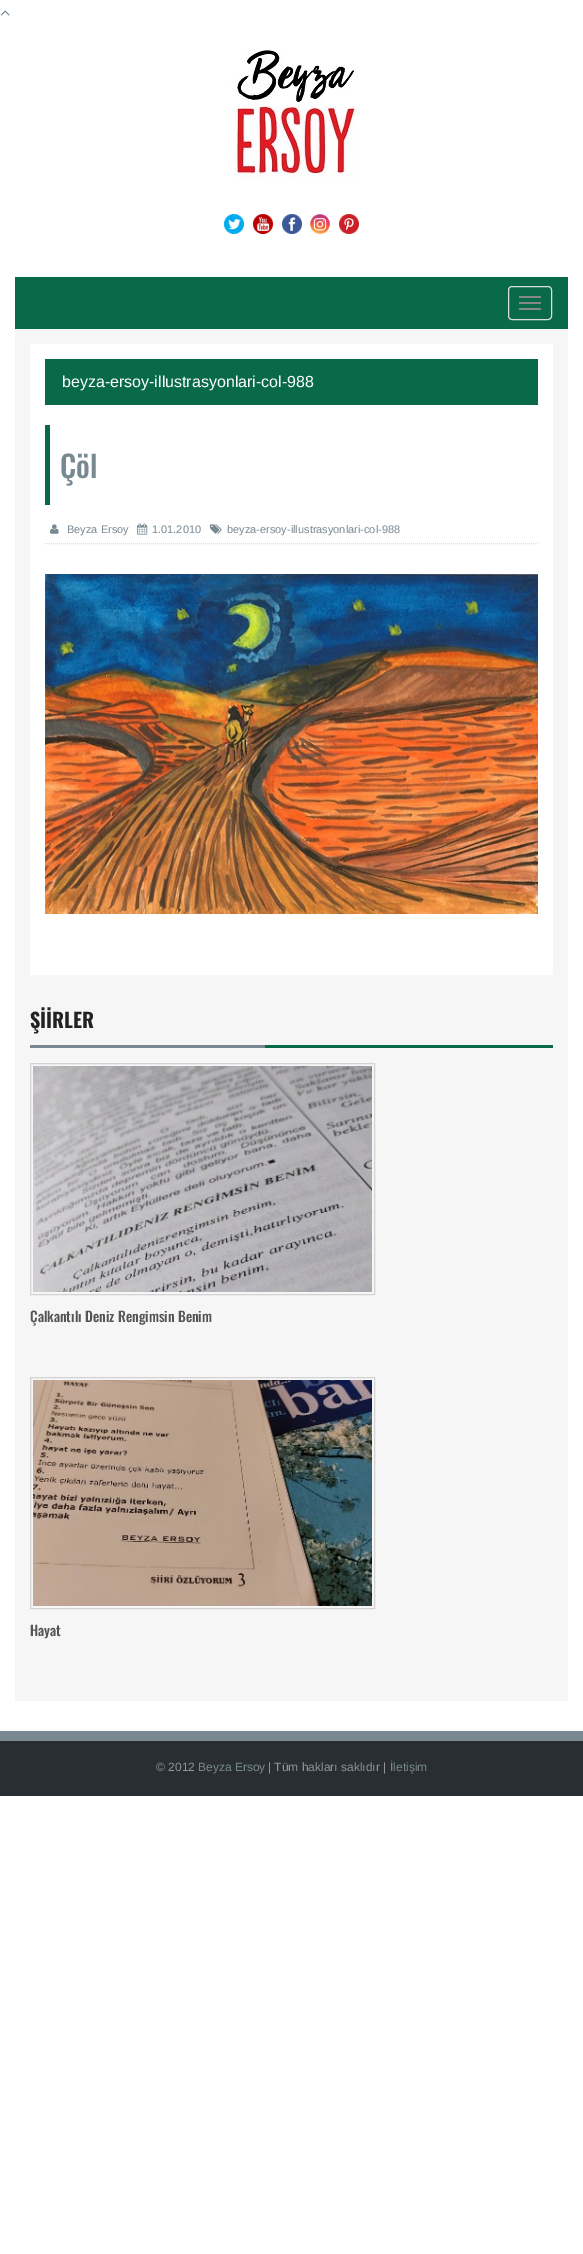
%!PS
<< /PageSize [583 2254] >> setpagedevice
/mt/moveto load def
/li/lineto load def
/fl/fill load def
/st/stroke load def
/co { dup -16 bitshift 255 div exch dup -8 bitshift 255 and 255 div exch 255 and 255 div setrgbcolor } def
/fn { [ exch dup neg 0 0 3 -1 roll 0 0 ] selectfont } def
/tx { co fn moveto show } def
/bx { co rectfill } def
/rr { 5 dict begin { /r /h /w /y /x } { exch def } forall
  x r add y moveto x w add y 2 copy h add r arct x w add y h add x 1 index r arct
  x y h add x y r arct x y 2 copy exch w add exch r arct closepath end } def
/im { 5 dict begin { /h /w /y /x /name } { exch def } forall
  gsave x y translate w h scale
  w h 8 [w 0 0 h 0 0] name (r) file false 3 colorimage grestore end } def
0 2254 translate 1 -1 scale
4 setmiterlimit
0 0 583 2254 16#FFFFFF bx
(media/1.raw) 0 10 10 6 im
(media/2.raw) 230 50 128 134 im
(media/3.raw) 224 214 20 20 im
(media/4.raw) 253 214 20 20 im
(media/5.raw) 282 214 20 20 im
(media/6.raw) 310 214 20 20 im
(media/7.raw) 339 214 20 20 im
15 277 553 52 16#086A48 bx
16#DDDDDD co
508.5 286.5 43 33 3.5 rr st
16#888888 co
519 296 22 2 1 rr fl
519 302 22 2 1 rr fl
519 308 22 2 1 rr fl
15 329 553 1372 16#F6F6F6 bx
30 344 523 631 16#FFFFFF bx
45 359 493 46 16#086A48 bx
45 425 5 80 16#086A48 bx
16#DEDEDE co
[1 1] 0 setdash
45 543.5 mt 538 543.5 li st
(media/8.raw) 50 524 9 10 im
(media/9.raw) 137 523 11 12 im
(media/10.raw) 210 524 12 10 im
(media/11.raw) 45 574 493 340 im
265 1045 288 3 16#086A48 bx
30 1045 235 3 16#798992 bx
16#D3D3D3 co
[] 0 setdash
30.5 1063.5 344 231 rectstroke
(media/12.raw) 33 1066 339 226 im
30.5 1377.5 344 231 rectstroke
(media/13.raw) 33 1380 339 226 im
0 1731 583 10 16#798992 bx
0 1741 583 55 16#282E31 bx
(beyza-ersoy-illustrasyonlari-col-988) 62 387 /LiberationSans-Regular 16 16#FFFFFF tx
(Çöl) 60 478 /Oswald-Medium 30 16#798992 tx
(Beyza Ersoy) 67 533 /LiberationSans-Regular 11 16#798992 tx
(1.01.2010) 152 533 /LiberationSans-Regular 11 16#798992 tx
(beyza-ersoy-illustrasyonlari-col-988) 227 533 /LiberationSans-Regular 11 16#798992 tx
(ŞİİRLER) 30 1028 /Oswald-Bold 20 16#222222 tx
(Çalkantılı Deniz Rengimsin Benim) 30 1322 /Oswald-Medium 14 16#565555 tx
(Hayat) 30 1636 /Oswald-Medium 14 16#565555 tx
(© 2012) 156 1771 /LiberationSans-Regular 12 16#949494 tx
(Beyza Ersoy) 198 1771 /LiberationSans-Regular 12 16#798992 tx
(| Tüm hakları saklıdır |) 268 1771 /LiberationSans-Regular 12 16#949494 tx
(İletişim) 390 1771 /LiberationSans-Regular 12 16#798992 tx
showpage
